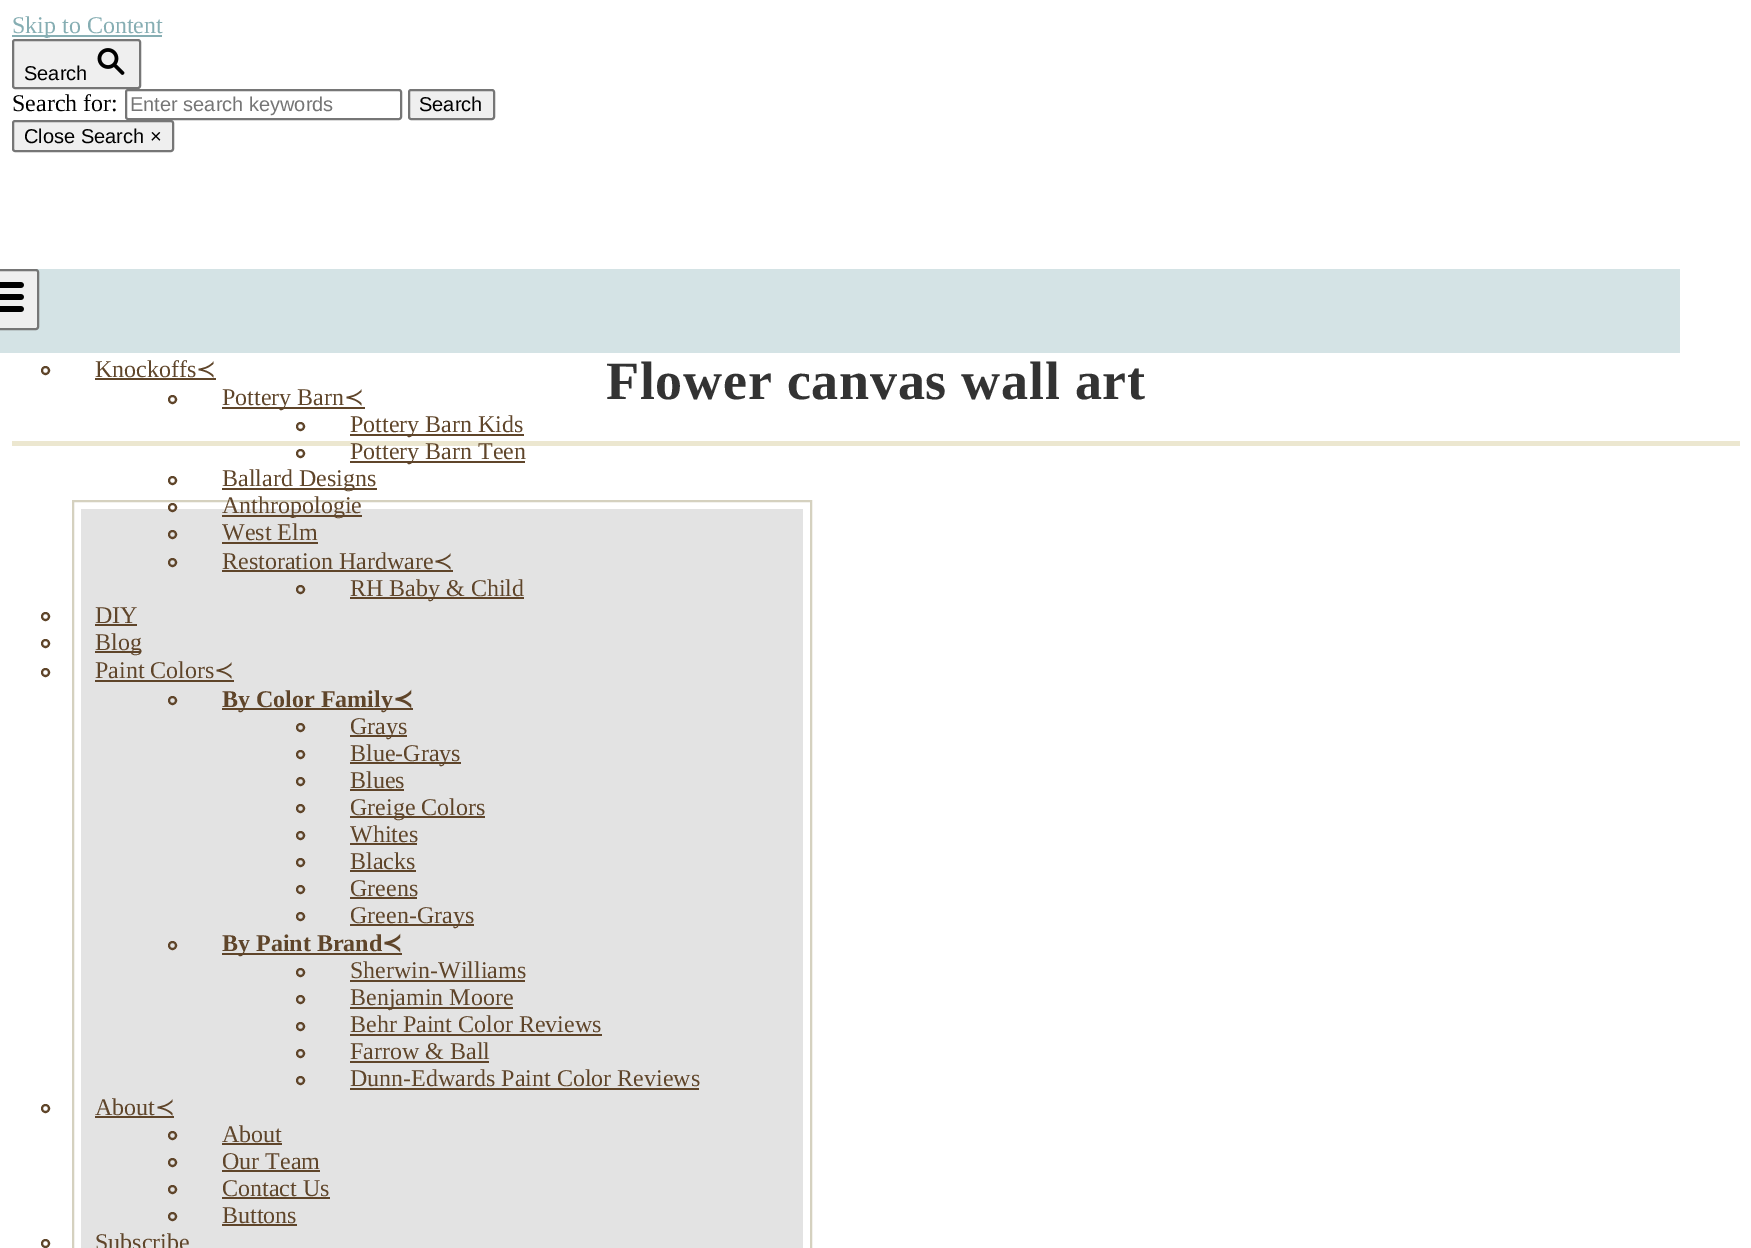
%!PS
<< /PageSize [1751 1248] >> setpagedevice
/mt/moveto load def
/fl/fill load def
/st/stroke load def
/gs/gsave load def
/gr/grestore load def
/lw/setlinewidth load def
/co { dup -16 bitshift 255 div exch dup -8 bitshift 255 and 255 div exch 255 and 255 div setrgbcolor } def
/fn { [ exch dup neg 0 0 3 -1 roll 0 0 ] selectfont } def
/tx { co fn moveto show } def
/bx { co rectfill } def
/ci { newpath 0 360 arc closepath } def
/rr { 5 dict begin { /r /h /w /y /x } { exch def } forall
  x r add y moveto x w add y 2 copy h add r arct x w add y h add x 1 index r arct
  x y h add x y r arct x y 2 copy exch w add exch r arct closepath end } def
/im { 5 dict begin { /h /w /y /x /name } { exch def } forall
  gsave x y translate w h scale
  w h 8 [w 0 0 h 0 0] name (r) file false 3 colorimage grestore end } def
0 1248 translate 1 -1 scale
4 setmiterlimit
0 0 1751 1248 16#FFFFFF bx
12 35 150 2 16#86AEB3 bx
16#EFEFEF co
13 40 127 48 2 rr gs fl gr
16#767676 co
2 lw
st
(media/1.raw) 97 48 28 27 im
126 90 275 29 2 rr st
16#EFEFEF co
409 90 85 29 2 rr gs fl gr
16#767676 co
st
16#EFEFEF co
13 121 160 30 2 rr gs fl gr
16#767676 co
st
0 269 1680 84 16#D4E3E5 bx
16#EFEFEF co
-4 270 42 59 2 rr gs fl gr
16#767676 co
st
(media/2.raw) 0 282 24 30 im
16#5F452A co
45.5 370.5 3.5 ci st
95 378 121 2 16#5F452A bx
172.5 399.5 3.5 ci st
222 407 143 2 16#5F452A bx
300.5 426.5 3.5 ci st
350 434 174 2 16#5F452A bx
300.5 453.5 3.5 ci st
350 461 175 2 16#5F452A bx
172.5 480.5 3.5 ci st
222 488 155 2 16#5F452A bx
16#D5D1BF co
73 501 738 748 rectstroke
81 509 722 739 16#E3E3E3 bx
16#5F452A co
172.5 507.5 3.5 ci st
222 515 140 2 16#5F452A bx
172.5 534.5 3.5 ci st
222 542 96 2 16#5F452A bx
172.5 562.5 3.5 ci st
222 570 231 2 16#5F452A bx
300.5 589.5 3.5 ci st
350 597 174 2 16#5F452A bx
45.5 616.5 3.5 ci st
95 624 42 2 16#5F452A bx
45.5 643.5 3.5 ci st
95 651 46 2 16#5F452A bx
45.5 672.5 3.5 ci st
95 680 139 2 16#5F452A bx
172.5 700.5 3.5 ci st
222 708 191 2 16#5F452A bx
300.5 727.5 3.5 ci st
350 735 57 2 16#5F452A bx
300.5 754.5 3.5 ci st
350 762 111 2 16#5F452A bx
300.5 781.5 3.5 ci st
350 789 54 2 16#5F452A bx
300.5 808.5 3.5 ci st
350 816 135 2 16#5F452A bx
300.5 835.5 3.5 ci st
350 843 67 2 16#5F452A bx
300.5 862.5 3.5 ci st
350 870 66 2 16#5F452A bx
300.5 889.5 3.5 ci st
350 897 67 2 16#5F452A bx
300.5 916.5 3.5 ci st
350 924 124 2 16#5F452A bx
172.5 945.5 3.5 ci st
222 953 180 2 16#5F452A bx
300.5 972.5 3.5 ci st
350 980 175 2 16#5F452A bx
300.5 999.5 3.5 ci st
350 1007 163 2 16#5F452A bx
300.5 1026.5 3.5 ci st
350 1034 252 2 16#5F452A bx
300.5 1053.5 3.5 ci st
350 1061 139 2 16#5F452A bx
300.5 1080.5 3.5 ci st
350 1088 349 2 16#5F452A bx
45.5 1108.5 3.5 ci st
95 1116 79 2 16#5F452A bx
172.5 1135.5 3.5 ci st
222 1143 60 2 16#5F452A bx
172.5 1162.5 3.5 ci st
222 1170 98 2 16#5F452A bx
172.5 1189.5 3.5 ci st
222 1197 108 2 16#5F452A bx
172.5 1216.5 3.5 ci st
222 1224 75 2 16#5F452A bx
45.5 1243.5 3.5 ci st
12 441 1728 5 16#ECE7D0 bx
(Skip to Content) 12 33 /LiberationSerif-Regular 24 16#86AEB3 tx
(Search) 24 80 /LiberationSans-Regular 20 16#000000 tx
(Search for:) 12 111 /LiberationSerif-Regular 24 16#000000 tx
(Enter search keywords) 130 111 /LiberationSans-Regular 20 16#757575 tx
(Search) 419 111 /LiberationSans-Regular 20 16#000000 tx
(Close Search ×) 24 143 /LiberationSans-Regular 20 16#000000 tx
(Knockoffs) 95 377 /LiberationSerif-Regular 24 16#5F452A tx
(≺) 196 377 /DejaVuSans-Regular 24 16#5F452A tx
(Pottery Barn) 222 405 /LiberationSerif-Regular 24 16#5F452A tx
(≺) 344 405 /DejaVuSans-Regular 24 16#5F452A tx
(Pottery Barn Kids) 350 432 /LiberationSerif-Regular 24 16#5F452A tx
(Pottery Barn Teen) 350 459 /LiberationSerif-Regular 24 16#5F452A tx
(Ballard Designs) 222 486 /LiberationSerif-Regular 24 16#5F452A tx
(Anthropologie) 222 513 /LiberationSerif-Regular 24 16#5F452A tx
(West Elm) 222 540 /LiberationSerif-Regular 24 16#5F452A tx
(Restoration Hardware) 222 569 /LiberationSerif-Regular 24 16#5F452A tx
(≺) 433 569 /DejaVuSans-Regular 24 16#5F452A tx
(RH Baby & Child) 350 596 /LiberationSerif-Regular 24 16#5F452A tx
(DIY) 95 623 /LiberationSerif-Regular 24 16#5F452A tx
(Blog) 95 650 /LiberationSerif-Regular 24 16#5F452A tx
(Paint Colors) 95 678 /LiberationSerif-Regular 24 16#5F452A tx
(≺) 214 678 /DejaVuSans-Regular 24 16#5F452A tx
(By Color Family) 222 707 /LiberationSerif-Bold 24 16#5F452A tx
(≺) 393 707 /DejaVuSans-Bold 24 16#5F452A tx
(Grays) 350 734 /LiberationSerif-Regular 24 16#5F452A tx
(Blue-Grays) 350 761 /LiberationSerif-Regular 24 16#5F452A tx
(Blues) 350 788 /LiberationSerif-Regular 24 16#5F452A tx
(Greige Colors) 350 815 /LiberationSerif-Regular 24 16#5F452A tx
(Whites) 350 842 /LiberationSerif-Regular 24 16#5F452A tx
(Blacks) 350 869 /LiberationSerif-Regular 24 16#5F452A tx
(Greens) 350 896 /LiberationSerif-Regular 24 16#5F452A tx
(Green-Grays) 350 923 /LiberationSerif-Regular 24 16#5F452A tx
(By Paint Brand) 222 951 /LiberationSerif-Bold 24 16#5F452A tx
(≺) 382 951 /DejaVuSans-Bold 24 16#5F452A tx
(Sherwin-Williams) 350 978 /LiberationSerif-Regular 24 16#5F452A tx
(Benjamin Moore) 350 1005 /LiberationSerif-Regular 24 16#5F452A tx
(Behr Paint Color Reviews) 350 1032 /LiberationSerif-Regular 24 16#5F452A tx
(Farrow & Ball) 350 1059 /LiberationSerif-Regular 24 16#5F452A tx
(Dunn-Edwards Paint Color Reviews) 350 1086 /LiberationSerif-Regular 24 16#5F452A tx
(About) 95 1115 /LiberationSerif-Regular 24 16#5F452A tx
(≺) 155 1115 /DejaVuSans-Regular 24 16#5F452A tx
(About) 222 1142 /LiberationSerif-Regular 24 16#5F452A tx
(Our Team) 222 1169 /LiberationSerif-Regular 24 16#5F452A tx
(Contact Us) 222 1196 /LiberationSerif-Regular 24 16#5F452A tx
(Buttons) 222 1223 /LiberationSerif-Regular 24 16#5F452A tx
(Subscribe) 95 1250 /LiberationSerif-Regular 24 16#5F452A tx
/LiberationSerif-Bold 54 fn
16#333333 co
606 399 mt .75 0 (Flower canvas wall art) ashow
showpage
